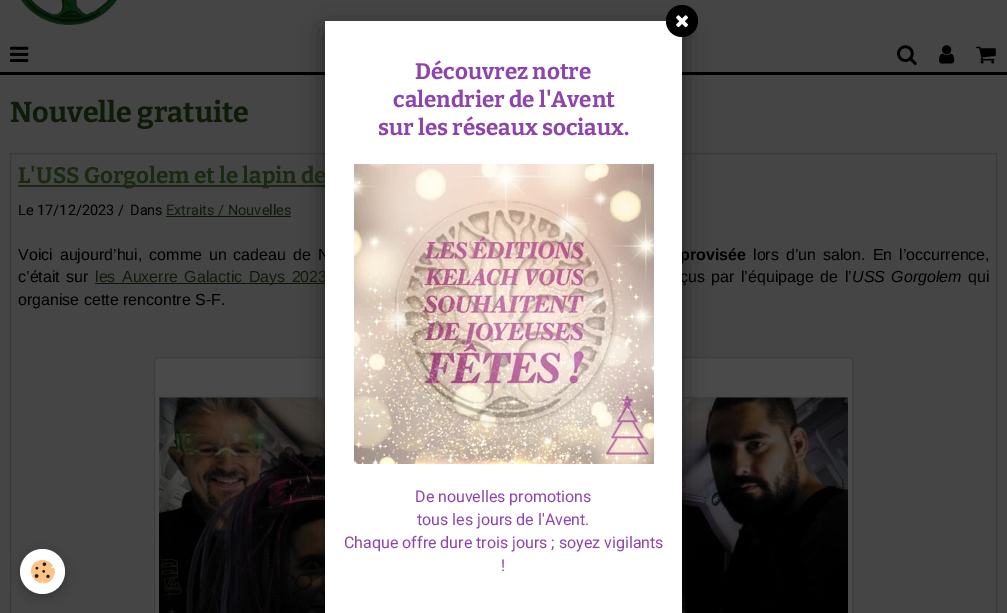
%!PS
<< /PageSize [1007 613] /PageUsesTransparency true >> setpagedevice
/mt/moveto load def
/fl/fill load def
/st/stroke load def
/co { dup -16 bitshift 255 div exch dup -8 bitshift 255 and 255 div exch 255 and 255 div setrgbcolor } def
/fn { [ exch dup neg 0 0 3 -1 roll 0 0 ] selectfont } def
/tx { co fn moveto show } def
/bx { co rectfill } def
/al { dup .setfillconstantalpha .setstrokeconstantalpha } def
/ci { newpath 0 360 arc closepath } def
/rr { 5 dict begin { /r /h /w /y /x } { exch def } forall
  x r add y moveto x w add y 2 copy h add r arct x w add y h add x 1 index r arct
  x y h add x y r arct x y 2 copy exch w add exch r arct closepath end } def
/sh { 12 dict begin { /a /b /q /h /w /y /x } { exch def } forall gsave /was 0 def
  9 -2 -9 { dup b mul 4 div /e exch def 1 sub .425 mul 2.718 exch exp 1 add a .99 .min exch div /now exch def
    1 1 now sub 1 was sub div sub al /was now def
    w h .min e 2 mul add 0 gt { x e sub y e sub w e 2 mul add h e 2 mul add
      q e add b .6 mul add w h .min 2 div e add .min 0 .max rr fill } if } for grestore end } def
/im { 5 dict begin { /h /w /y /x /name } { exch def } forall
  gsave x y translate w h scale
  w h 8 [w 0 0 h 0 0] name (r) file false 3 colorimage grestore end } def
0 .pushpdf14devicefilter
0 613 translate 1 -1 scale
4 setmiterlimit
0 0 1007 613 16#454545 bx
0 72 1007 3 16#000000 bx
(media/1.raw) 21 0 97 25 im
(media/2.raw) 10 46 19 16 im
(media/3.raw) 897 45 20 20 im
(media/4.raw) 939 45 16 19 im
(media/5.raw) 976 46 20 18 im
16#393B3B co
10.5 153.5 986 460 rectstroke
18 185 307 2 16#1B2913 bx
166 216 125 1 16#0B1706 bx
95 283 232 1 16#0B1706 bx
16#4A4A4A co
154 357 699 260 4 rr fl
0.41 al
16#282D2D co
154.5 357.5 698 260 3.5 rr st
1 al
(media/8.raw) 159 393 689 220 im
16#000000 co
325 31 357 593 0 12.5 .5 sh
20 552 45 45 22.5 5 .24 sh
16#FFFFFF co
42.5 571.5 22.5 ci fl
(media/9.raw) 30 559 25 25 im
(Nouvelle gratuite) 10 122 /Bitter-Bold 28.75 16#0F1B09 tx
(L'USS Gorgolem et le lapin de) 18 183 /Bitter-Bold 22.4 16#1B2913 tx
(Le 17/12/2023 /) 18 215 /Roboto-Regular 14.5 16#000000 tx
(Dans) 130 215 /Roboto-Regular 14.5 16#000000 tx
(Extraits / Nouvelles) 166 215 /Roboto-Regular 14.5 16#0F1B09 tx
/LiberationSans-Regular 16 fn
16#000000 co
18 260 mt 2.5 0 32 (Voici aujourd’hui, comme un cadeau de N) widthshow
/LiberationSans-Bold 16 fn
680 260 mt 2.5 0 32 (provisée) widthshow
/LiberationSans-Regular 16 fn
753 260 mt 2.5 0 32 (lors d’un salon. En l’occurrence,) widthshow
18 282 mt 2 0 32 (c’était sur) widthshow
16#0F1B09 co
95 282 mt 2 0 32 (les Auxerre Galactic Days 2023) widthshow
16#000000 co
680 282 mt 2 0 32 (çus par l’équipage de l’) widthshow
325 21 357 592 16#FFFFFF bx
16#000000 co
682 21 16 ci fl
(media/6.raw) 676 15 12 13 im
(!) 501 571 /Roboto-Regular 16 16#8E44AD tx
(Chaque offre dure trois jours ; soyez vigilants) 344 548 /Roboto-Regular 16 16#8E44AD tx
(tous les jours de l'Avent.) 417 525 /Roboto-Regular 16 16#8E44AD tx
(De nouvelles promotions) 415 502 /Roboto-Regular 16 16#8E44AD tx
(media/7.raw) 354 164 300 300 im
(sur les réseaux sociaux.) 378 135 /Bitter-Bold 22.4 16#8E44AD tx
(calendrier de l'Avent) 393 107 /Bitter-Bold 22.4 16#8E44AD tx
(Découvrez notre) 415 79 /Bitter-Bold 22.4 16#8E44AD tx
/LiberationSans-Italic 16 fn
16#000000 co
852 282 mt 2 0 32 (USS Gorgolem) widthshow
(qui) 968 282 /LiberationSans-Regular 16 16#000000 tx
(organise cette rencontre S-F.) 18 305 /LiberationSans-Regular 16 16#000000 tx
.poppdf14devicefilter showpage
